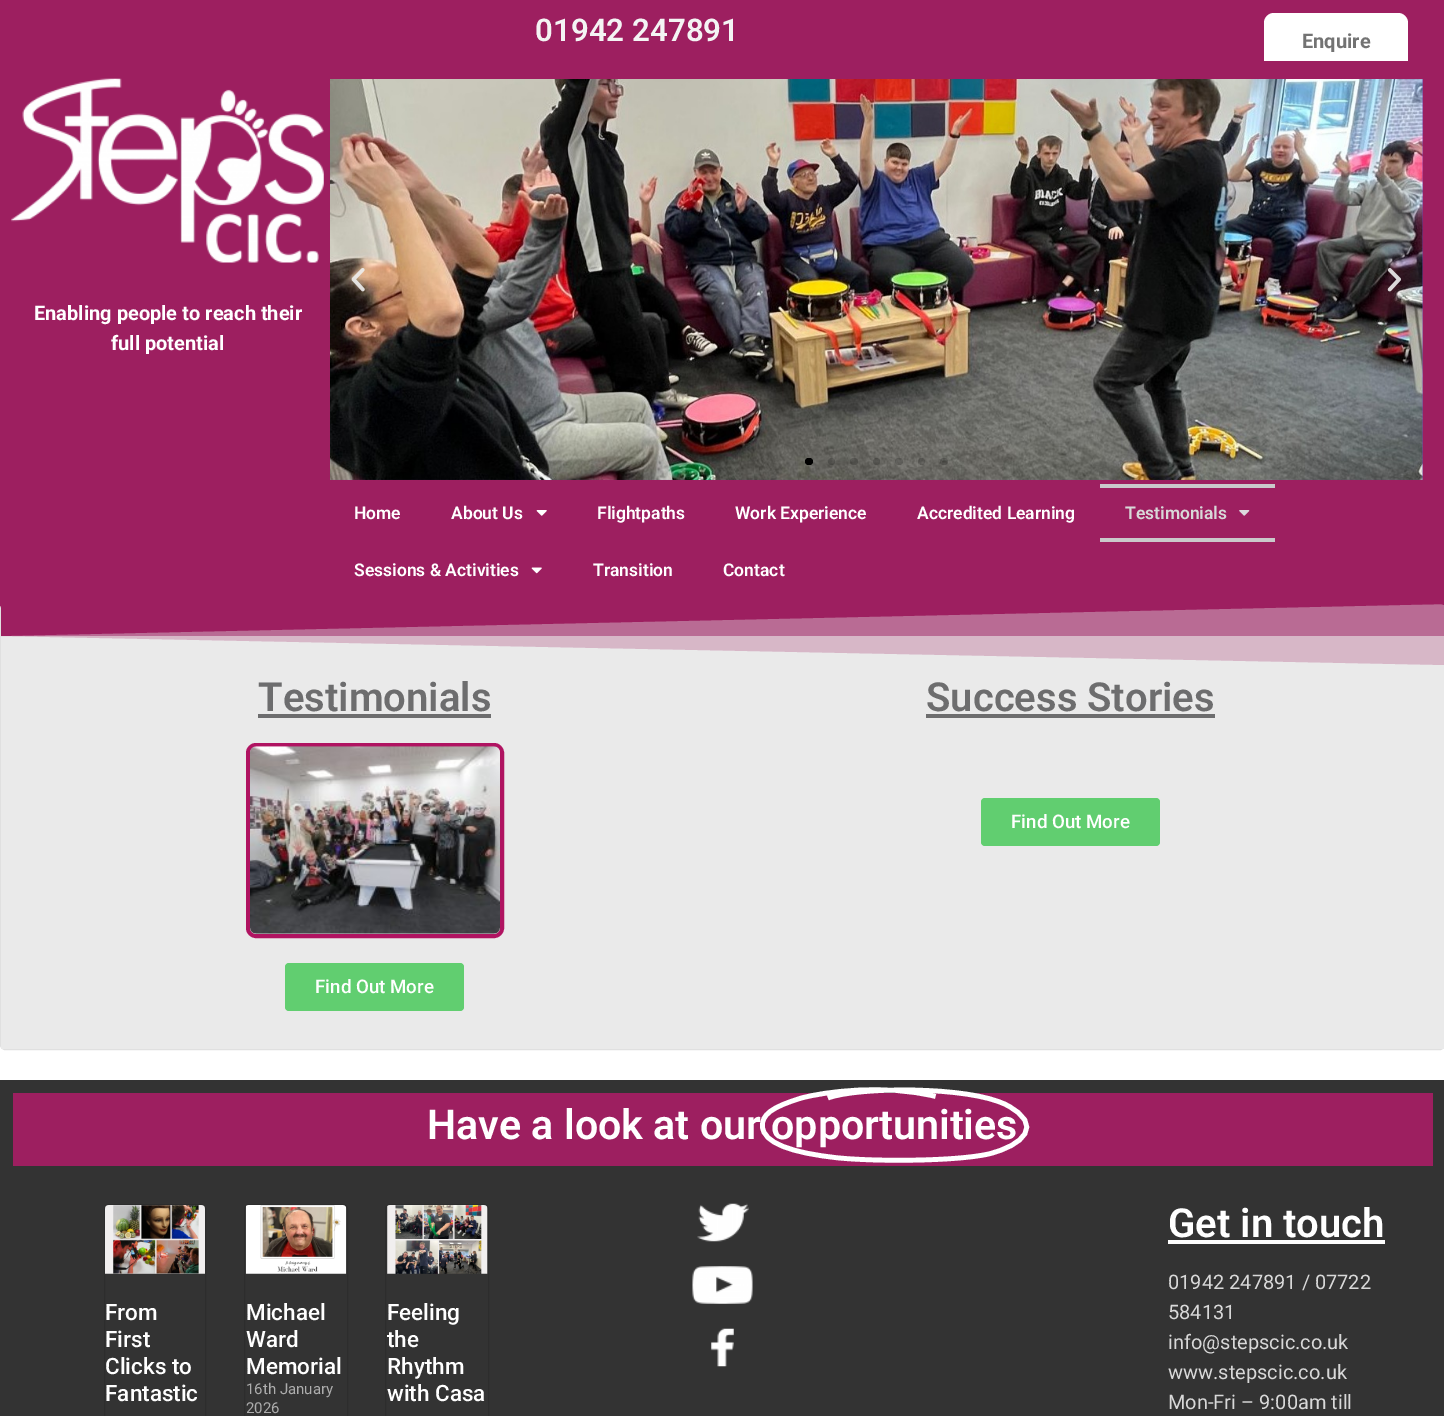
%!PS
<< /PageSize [1444 1416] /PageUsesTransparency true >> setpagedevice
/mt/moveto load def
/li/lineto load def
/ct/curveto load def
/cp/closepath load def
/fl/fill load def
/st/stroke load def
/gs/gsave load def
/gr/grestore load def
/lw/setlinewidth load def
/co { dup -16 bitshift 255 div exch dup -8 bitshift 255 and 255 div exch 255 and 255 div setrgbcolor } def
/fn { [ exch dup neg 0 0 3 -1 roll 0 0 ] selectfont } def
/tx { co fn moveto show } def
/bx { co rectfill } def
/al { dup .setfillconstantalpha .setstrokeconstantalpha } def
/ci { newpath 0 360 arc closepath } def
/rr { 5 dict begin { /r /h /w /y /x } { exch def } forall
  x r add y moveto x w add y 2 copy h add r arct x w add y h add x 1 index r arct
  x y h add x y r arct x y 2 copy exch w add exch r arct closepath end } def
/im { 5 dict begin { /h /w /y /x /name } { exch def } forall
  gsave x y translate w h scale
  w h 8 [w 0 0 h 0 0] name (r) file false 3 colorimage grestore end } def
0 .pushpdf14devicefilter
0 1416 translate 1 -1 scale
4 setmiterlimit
0 0 1444 1416 16#FFFFFF bx
0 0 1444 61 16#9D1F60 bx
16#FFFFFF co
1264 13 144 57 10 rr fl
0 61 1444 548 16#9D1F60 bx
(media/1.raw) 11 78 313 185 im
330 79 1093 401 16#833CA3 bx
(media/2.raw) 330 79 1093 401 im
(media/3.raw) 351 268 14 24 im
(media/4.raw) 1387 268 14 24 im
16#000000 co
805 458 8 7 3.5 rr fl
0.2 al
831.5 461.5 3.5 ci fl
850 458 8 7 3.5 rr fl
876.5 461.5 3.5 ci fl
895 458 8 7 3.5 rr fl
921.5 461.5 3.5 ci fl
940 458 8 7 3.5 rr fl
1 al
(media/5.raw) 536 510 11 6 im
1100 484 175 4 16#CAC9CB bx
(media/6.raw) 1239 510 11 6 im
1100 538 175 4 16#CAC9CB bx
(media/7.raw) 531 567 11 7 im
16#FFFFFF co
0 604 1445 446 5 rr fl
0.12 al
16#000000 co
.5 604.5 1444 445 4.5 rr st
1 al
1 605 1443 444 16#EAEAEA bx
gs
1 604 1443 61 rectclip
16#9D1F60 co
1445 604 mt 0 604 li 0 636 li cp fl
gr
0.5 al
1 604 1443 32 16#9D1F60 bx
gs
1 604 1443 61 rectclip
0.25 al
0 604 mt 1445 604 li 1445 665 li 0 636 li cp fl
gr
1 al
258 714 233 4 16#6D6D6E bx
16#B01361 co
4 lw
248 745 254 191 8 rr st
(media/8.raw) 250 746 250 188 im
16#61CE70 co
285 963 179 48 4 rr fl
926 714 289 4 16#6D6D6E bx
16#61CE70 co
981 798 179 48 4 rr fl
0 1080 1444 336 16#333333 bx
13 1093 1420 73 16#9D1F60 bx
16#FFFFFF co
4.7 lw
935.5 1096.5 mt 883.5 1083.5 823.5 1092 801.5 1098 ct 771.5 1107 761.5 1115 762.5 1126.5 ct 763 1142.5 790.5 1153 839.5 1158 ct 875.5 1161.5 955 1161.5 988.5 1154 ct 1023 1145.5 1045 1125 1006.5 1105 ct 969 1085.5 856.5 1087 828 1098 ct st
16#2D2D2D co
1 lw
104.5 1204.5 101 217 4.5 rr st
(media/9.raw) 105 1205 100 69 im
244.5 1204.5 103 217 4.5 rr st
(media/10.raw) 245 1205 102 69 im
385.5 1204.5 103 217 4.5 rr st
(media/11.raw) 387 1205 101 69 im
(media/12.raw) 697 1203 52 39 im
(media/13.raw) 692 1266 61 38 im
(media/14.raw) 711 1328 23 39 im
1168 1240 217 4 16#FFFFFF bx
(01942 247891) 535 41 /Roboto-SemiBold 31.25 16#F4F4F4 tx
(Enquire) 1302 48 /Roboto-Bold 20 16#737373 tx
(Enabling people to reach their) 34 320 /Roboto-Bold 20 16#FFFFFF tx
(full potential) 111 350 /Roboto-Bold 20 16#FFFFFF tx
(Home) 354 519 /Roboto-SemiBold 17.5 16#FFFFFF tx
(About Us) 451 519 /Roboto-SemiBold 17.5 16#FFFFFF tx
(Flightpaths) 597 519 /Roboto-SemiBold 17.5 16#FFFFFF tx
(Work Experience) 735 519 /Roboto-SemiBold 17.5 16#FFFFFF tx
(Accredited Learning) 917 519 /Roboto-SemiBold 17.5 16#FFFFFF tx
(Testimonials) 1125 519 /Roboto-SemiBold 17.5 16#D8D8D8 tx
(Sessions & Activities) 354 576 /Roboto-SemiBold 17.5 16#FFFFFF tx
(Transition) 593 576 /Roboto-SemiBold 17.5 16#FFFFFF tx
(Contact) 723 576 /Roboto-SemiBold 17.5 16#FFFFFF tx
(Testimonials) 258 711 /Roboto-SemiBold 40 16#6D6D6E tx
(Find Out More) 315 993 /Roboto-Medium 18.75 16#FFFFFF tx
(Success Stories) 926 711 /Roboto-SemiBold 40 16#6D6D6E tx
(Find Out More) 1011 828 /Roboto-Medium 18.75 16#FFFFFF tx
(Have a look at our opportunities) 427 1139 /Roboto-SemiBold 41.25 16#FFFFFF tx
(From) 105 1320 /Roboto-Medium 22.5 16#FFFFFF tx
(First) 105 1347 /Roboto-Medium 22.5 16#FFFFFF tx
(Clicks to) 105 1374 /Roboto-Medium 22.5 16#FFFFFF tx
(Fantastic) 105 1401 /Roboto-Medium 22.5 16#FFFFFF tx
(Michael) 246 1320 /Roboto-Medium 22.5 16#FFFFFF tx
(Ward) 246 1347 /Roboto-Medium 22.5 16#FFFFFF tx
(Memorial) 246 1374 /Roboto-Medium 22.5 16#FFFFFF tx
(16th January) 246 1394 /Roboto-Regular 15 16#ADADAD tx
(2026) 246 1413 /Roboto-Regular 15 16#ADADAD tx
(Feeling) 387 1320 /Roboto-Medium 22.5 16#FFFFFF tx
(the) 387 1347 /Roboto-Medium 22.5 16#FFFFFF tx
(Rhythm) 387 1374 /Roboto-Medium 22.5 16#FFFFFF tx
(with Casa) 387 1401 /Roboto-Medium 22.5 16#FFFFFF tx
(Get in touch) 1168 1237 /Roboto-SemiBold 40 16#FFFFFF tx
(01942 247891 / 07722) 1168 1289 /Roboto-Regular 20 16#D8D8D8 tx
(584131) 1168 1319 /Roboto-Regular 20 16#D8D8D8 tx
(info@stepscic.co.uk) 1168 1349 /Roboto-Regular 20 16#D8D8D8 tx
(www.stepscic.co.uk) 1168 1379 /Roboto-Regular 20 16#D8D8D8 tx
(Mon-Fri – 9:00am till) 1168 1409 /Roboto-Regular 20 16#D8D8D8 tx
.poppdf14devicefilter showpage
